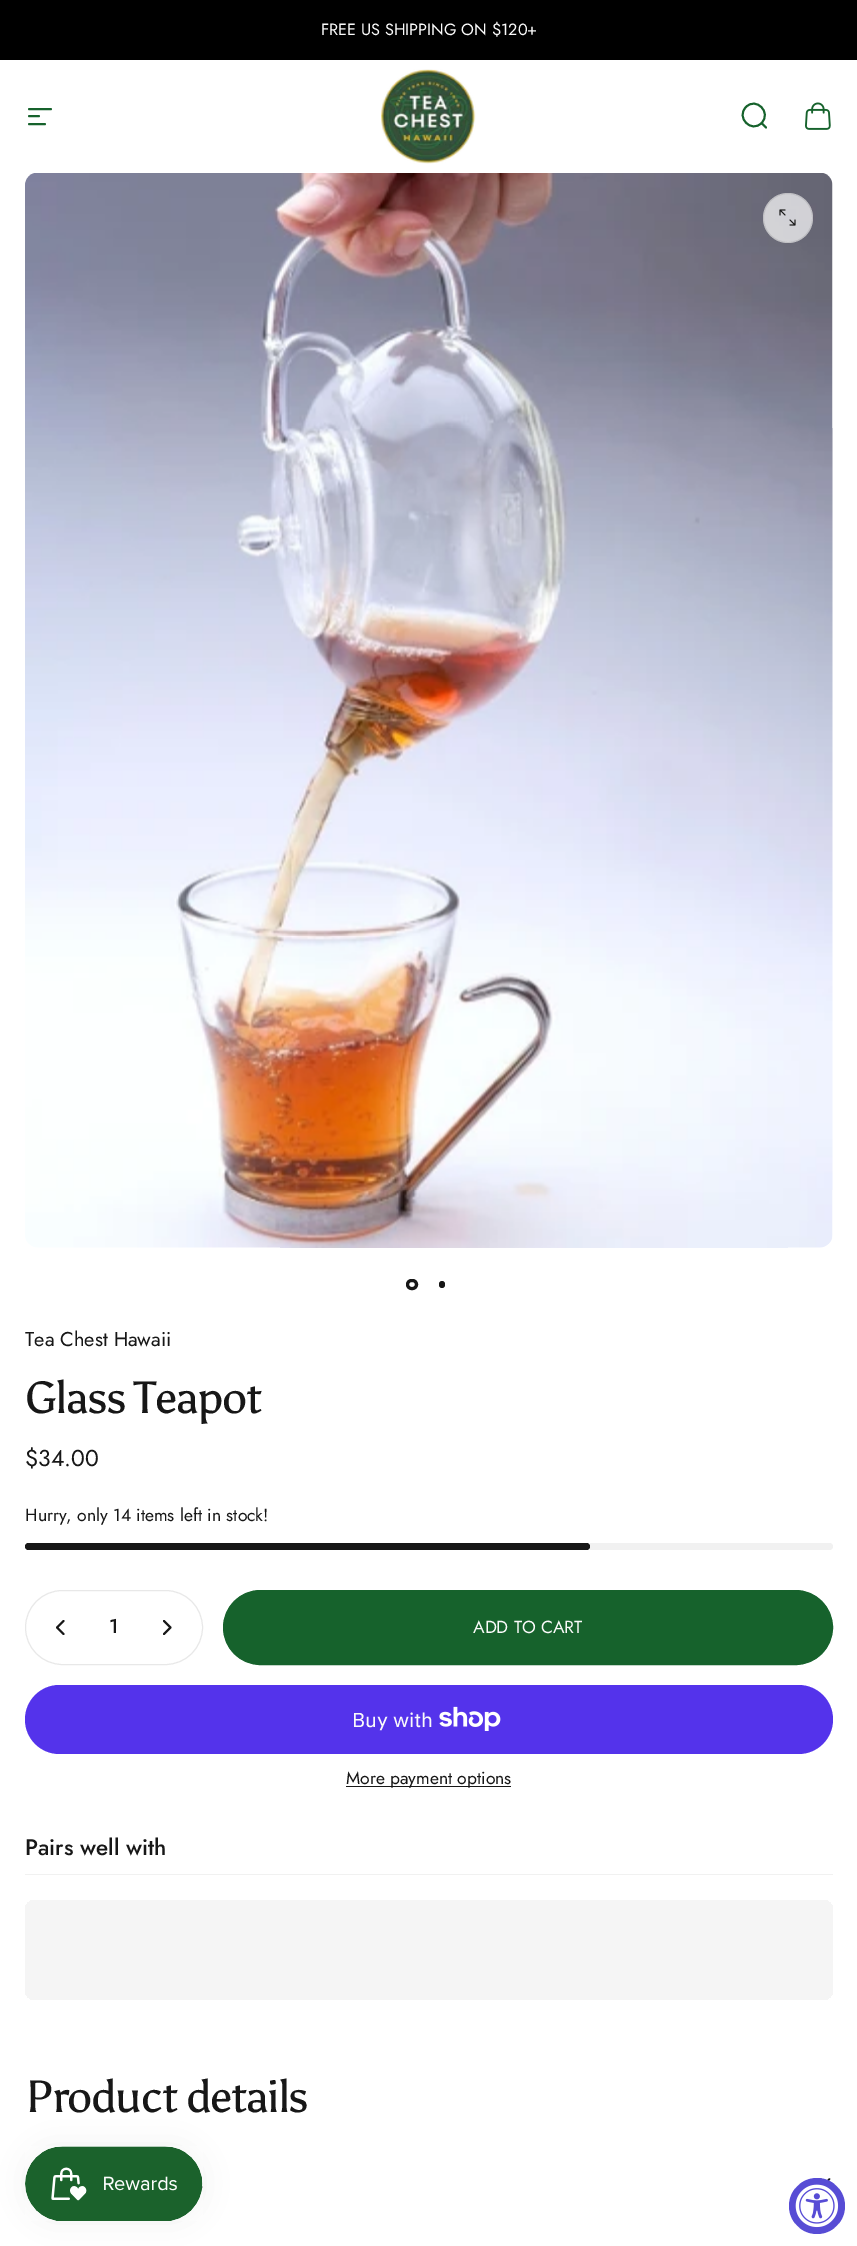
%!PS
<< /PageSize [857 2246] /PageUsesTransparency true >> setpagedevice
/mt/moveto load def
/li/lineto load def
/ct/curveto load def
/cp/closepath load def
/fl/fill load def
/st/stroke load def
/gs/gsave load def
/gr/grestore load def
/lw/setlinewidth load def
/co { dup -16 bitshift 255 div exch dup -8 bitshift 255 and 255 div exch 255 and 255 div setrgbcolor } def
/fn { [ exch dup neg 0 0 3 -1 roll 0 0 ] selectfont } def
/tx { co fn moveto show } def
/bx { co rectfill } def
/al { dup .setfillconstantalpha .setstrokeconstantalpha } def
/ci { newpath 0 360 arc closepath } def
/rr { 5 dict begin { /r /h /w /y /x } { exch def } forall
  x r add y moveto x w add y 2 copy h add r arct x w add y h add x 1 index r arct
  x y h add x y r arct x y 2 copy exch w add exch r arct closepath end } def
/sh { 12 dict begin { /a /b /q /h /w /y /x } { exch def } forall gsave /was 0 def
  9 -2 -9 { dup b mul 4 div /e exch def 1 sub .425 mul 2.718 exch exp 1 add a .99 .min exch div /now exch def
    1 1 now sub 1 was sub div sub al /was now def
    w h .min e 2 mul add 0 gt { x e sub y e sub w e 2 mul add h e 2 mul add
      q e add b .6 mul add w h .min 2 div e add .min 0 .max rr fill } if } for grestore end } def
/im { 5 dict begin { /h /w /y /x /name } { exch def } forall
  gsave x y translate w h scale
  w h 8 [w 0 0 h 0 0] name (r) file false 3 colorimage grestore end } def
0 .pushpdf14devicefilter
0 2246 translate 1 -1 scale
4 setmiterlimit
0 0 857 2246 16#FFFFFF bx
0 0 857 60 16#000000 bx
16#16622C co
1.9 lw
1 setlinecap
29 109 mt 51 109 li 29 116 mt 39 116 li 29 124 mt 45 124 li st
(media/1.raw) 381 69 95 95 im
766 127.5 mt 761.5 123 li 761.5 123 mt 772 112.5 756 96.5 746 107 ct 735.5 117.5 751.5 133.5 761.5 123 ct cp st
(media/2.raw) 805 102 26 28 im
(media/3.raw) 25 173 808 1075 im
0.7 al
16#FFFFFF co
788 218 25 ci fl
0.1 al
16#171717 co
1 lw
0 setlinecap
788 218 24.5 ci st
1 al
(media/4.raw) 779 209 17 17 im
3 lw
407.5 1280.5 9 8 4 rr st
439 1281 6 7 3 rr fl
16#F1F1F1 co
25 1543 808 7 3.5 rr fl
16#171717 co
25 1543 565 7 3.5 rr fl
16#E8E8E8 co
1 lw
25.5 1590.5 177 74 37 rr st
16#171717 co
2.1 lw
1 setlinecap
1 setlinejoin
63.5 1621 mt 57 1627.5 li 63.5 1634 li st
164 1621 mt 170.5 1627.5 li 164 1634 li st
16#16622C co
223.5 1590.5 609 74 37 rr gs fl gr
1 lw
0 setlinecap
0 setlinejoin
st
16#5433EB co
25 1685 808 69 34.5 rr fl
(media/5.raw) 439 1706 62 25 im
346 1786 165 1 16#171717 bx
25 1874 808 1 16#F1F1F1 bx
gs 25 1900 808 100 10 rr clip newpath
<< /ShadingType 2 /ColorSpace /DeviceRGB /Coords [65 1672 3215 2228] /Extend [true true] /Function << /FunctionType 3 /Domain [0 1] /Functions [<< /FunctionType 2 /Domain [0 1] /C0 [.961 .961 .961] /C1 [.961 .961 .961] /N 1 >> << /FunctionType 2 /Domain [0 1] /C0 [.961 .961 .961] /C1 [.898 .898 .898] /N 1 >> << /FunctionType 2 /Domain [0 1] /C0 [.898 .898 .898] /C1 [.961 .961 .961] /N 1 >> << /FunctionType 2 /Domain [0 1] /C0 [.961 .961 .961] /C1 [.961 .961 .961] /N 1 >>] /Bounds [.4 .63 .79] /Encode [0 1 0 1 0 1 0 1] >> >> shfill gr
16#171717 co
1.6 lw
1 setlinecap
1 setlinejoin
829.5 2188 mt 820.5 2179 li 829.5 2179 mt 820.5 2188 li st
16#000000 co
25 2146 178 75 37.5 15.5 .05 sh
(media/6.raw) 25 2146 178 75 im
16#574CD5 co
817 2206 28 ci fl
(media/7.raw) 795 2184 44 44 im
(FREE US SHIPPING ON $120+) 321 35 /Jost-Regular 16.25 16#FAFAFA tx
(Tea Chest Hawaii) 25 1346 /Jost-Regular 20 16#171717 tx
/Asul-Regular 45 fn
25 1413 mt -1.4 0 (Glass Teapot) ashow
($34.00) 25 1466 /Jost-Regular 23 16#171717 tx
(Hurry, only 14 items left in stock!) 25 1521 /Jost-Regular 17.5 16#171717 tx
(1) 109 1633 /Jost-Medium 20 16#171717 tx
(ADD TO CART) 473 1633 /Jost-Regular 17.5 16#FAFAFA tx
(Buy with) 352 1727 /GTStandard-Regular 20 16#FAFAFA tx
(More payment options) 346 1784 /Jost-Regular 17.5 16#171717 tx
(Pairs well with) 25 1855 /Jost-Medium 22.5 16#171717 tx
/Asul-Regular 45 fn
25 2112 mt -1.4 0 (Product details) ashow
.poppdf14devicefilter showpage
